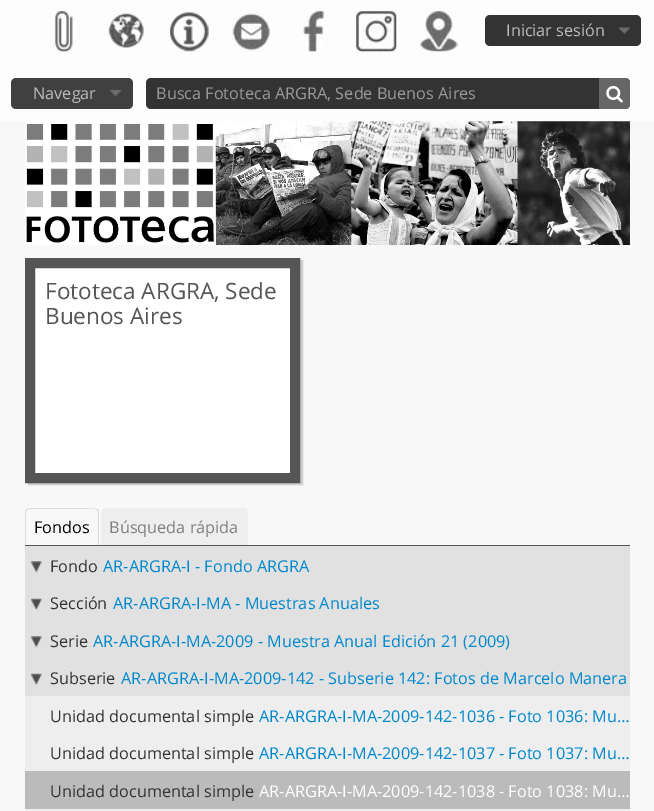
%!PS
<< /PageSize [654 811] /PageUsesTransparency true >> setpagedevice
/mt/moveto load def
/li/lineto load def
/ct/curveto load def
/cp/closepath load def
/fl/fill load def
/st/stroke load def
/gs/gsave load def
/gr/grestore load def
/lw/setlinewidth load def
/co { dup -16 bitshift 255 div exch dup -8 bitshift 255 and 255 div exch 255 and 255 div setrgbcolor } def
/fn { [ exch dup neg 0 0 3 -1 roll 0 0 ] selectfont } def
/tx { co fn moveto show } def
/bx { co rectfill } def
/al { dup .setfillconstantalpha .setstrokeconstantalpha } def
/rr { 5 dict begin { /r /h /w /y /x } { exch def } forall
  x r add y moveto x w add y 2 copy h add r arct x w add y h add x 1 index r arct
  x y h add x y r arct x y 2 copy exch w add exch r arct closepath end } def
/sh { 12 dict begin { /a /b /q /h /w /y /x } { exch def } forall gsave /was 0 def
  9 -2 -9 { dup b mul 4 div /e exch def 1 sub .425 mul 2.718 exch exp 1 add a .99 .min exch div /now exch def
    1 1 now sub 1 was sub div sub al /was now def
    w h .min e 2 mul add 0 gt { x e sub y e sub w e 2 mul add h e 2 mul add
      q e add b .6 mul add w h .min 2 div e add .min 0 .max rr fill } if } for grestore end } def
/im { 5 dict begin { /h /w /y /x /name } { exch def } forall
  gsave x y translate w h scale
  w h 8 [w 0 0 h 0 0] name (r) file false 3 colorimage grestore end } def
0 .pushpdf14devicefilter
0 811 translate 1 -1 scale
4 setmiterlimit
0 0 654 811 16#F8F8F8 bx
0 0 654 121 16#FDFDFD bx
(media/1.raw) 54 11 19 41 im
(media/2.raw) 106 11 39 37 im
(media/3.raw) 169 12 40 40 im
(media/4.raw) 231 13 40 38 im
(media/5.raw) 303 11 21 41 im
(media/6.raw) 356 11 41 41 im
(media/7.raw) 419 11 40 41 im
16#333333 co
485 15 156 31 5 rr fl
(media/8.raw) 618 27 13 7 im
16#404040 co
11 78 122 31 5 rr fl
(media/9.raw) 110 90 12 7 im
16#333333 co
146 78 484 31 5 rr fl
0.07 al
16#000000 co
151 79 mt 625 79 li 628 79 630 81 630 84 ct 630 83 li 630 80 628 78 625 78 ct 151 78 li 148 78 146 80 146 83 ct 146 84 li 146 81 148 79 151 79 ct cp fl
1 al
16#666666 co
599 78 mt 625 78 li 628 78 630 80 630 83 ct 630 104 li 630 107 628 109 625 109 ct 599 109 li cp fl
(media/10.raw) 606 86 17 17 im
(media/11.raw) 25 121 605 124 im
16#191919 co
28 260 275 225 0 .5 .2 sh
16#FFFFFF co
30 263 mt 295 263 li 295 478 li 30 478 li cp gs fl gr
16#555555 co
10 lw
st
25 545 605 1 16#555555 bx
16#DDDDDD co
30 508 mt 27 509 li 27 510 li 30 509 li 83 509 li 88 509 93 507 97 510 ct 97 509 li 94 508 li cp fl
97.5 509 mt 99 511 li 99 545 li 98 544 li 98 511.5 li 96.5 509.5 li cp fl
25 545 mt 26 544 li 26 511.5 li 27 510 li 26.5 509 li 25.5 510 25 511 25 512 ct cp fl
16#EEEEEE co
106 508 mt 243 508 li 246 508 248 510 248 513 ct 248 545 li 101 545 li 101 513 li 101 510 103 508 106 508 ct cp fl
25 696 605 115 16#EEEEEE bx
25 546 605 150 16#E1E1E1 bx
(media/12.raw) 31 561 12 12 im
(media/13.raw) 31 598 12 12 im
(media/12.raw) 31 636 12 12 im
(media/13.raw) 31 673 12 12 im
25 771 605 38 16#BBBBBB bx
(Iniciar sesión) 506 36 /OpenSans-Regular 16.25 16#BBBBBB tx
(Navegar) 33 99 /OpenSans-Regular 16.25 16#BBBBBB tx
(Busca Fototeca ARGRA, Sede Buenos Aires) 156 99 /OpenSans-Regular 16.25 16#999999 tx
(Fototeca ARGRA, Sede) 45 299 /OpenSans-Regular 22.5 16#555555 tx
(Buenos Aires) 45 324 /OpenSans-Regular 22.5 16#555555 tx
(Fondos) 34 533 /OpenSans-Regular 16.25 16#000000 tx
(Búsqueda rápida) 109 533 /OpenSans-Regular 16.25 16#808080 tx
(Fondo) 50 572 /OpenSans-Regular 16.25 16#333333 tx
(AR-ARGRA-I - Fondo ARGRA) 103 572 /OpenSans-Regular 16.25 16#0088CC tx
(Sección) 50 609 /OpenSans-Regular 16.25 16#333333 tx
(AR-ARGRA-I-MA - Muestras Anuales) 113 609 /OpenSans-Regular 16.25 16#0088CC tx
(Serie) 50 647 /OpenSans-Regular 16.25 16#333333 tx
(AR-ARGRA-I-MA-2009 - Muestra Anual Edición 21 \(2009\)) 93 647 /OpenSans-Regular 16.25 16#0088CC tx
(Subserie) 50 684 /OpenSans-Regular 16.25 16#333333 tx
(AR-ARGRA-I-MA-2009-142 - Subserie 142: Fotos de Marcelo Manera) 121 684 /OpenSans-Regular 16.25 16#0088CC tx
(Unidad documental simple) 50 722 /OpenSans-Regular 16.25 16#333333 tx
(AR-ARGRA-I-MA-2009-142-1036 - Foto 1036: Mu…) 259 722 /OpenSans-Regular 16.25 16#0088CC tx
(Unidad documental simple) 50 759 /OpenSans-Regular 16.25 16#333333 tx
(AR-ARGRA-I-MA-2009-142-1037 - Foto 1037: Mu…) 259 759 /OpenSans-Regular 16.25 16#0088CC tx
(Unidad documental simple) 50 797 /OpenSans-Regular 16.25 16#333333 tx
(AR-ARGRA-I-MA-2009-142-1038 - Foto 1038: Mu…) 259 797 /OpenSans-Regular 16.25 16#FFFFFF tx
.poppdf14devicefilter showpage
